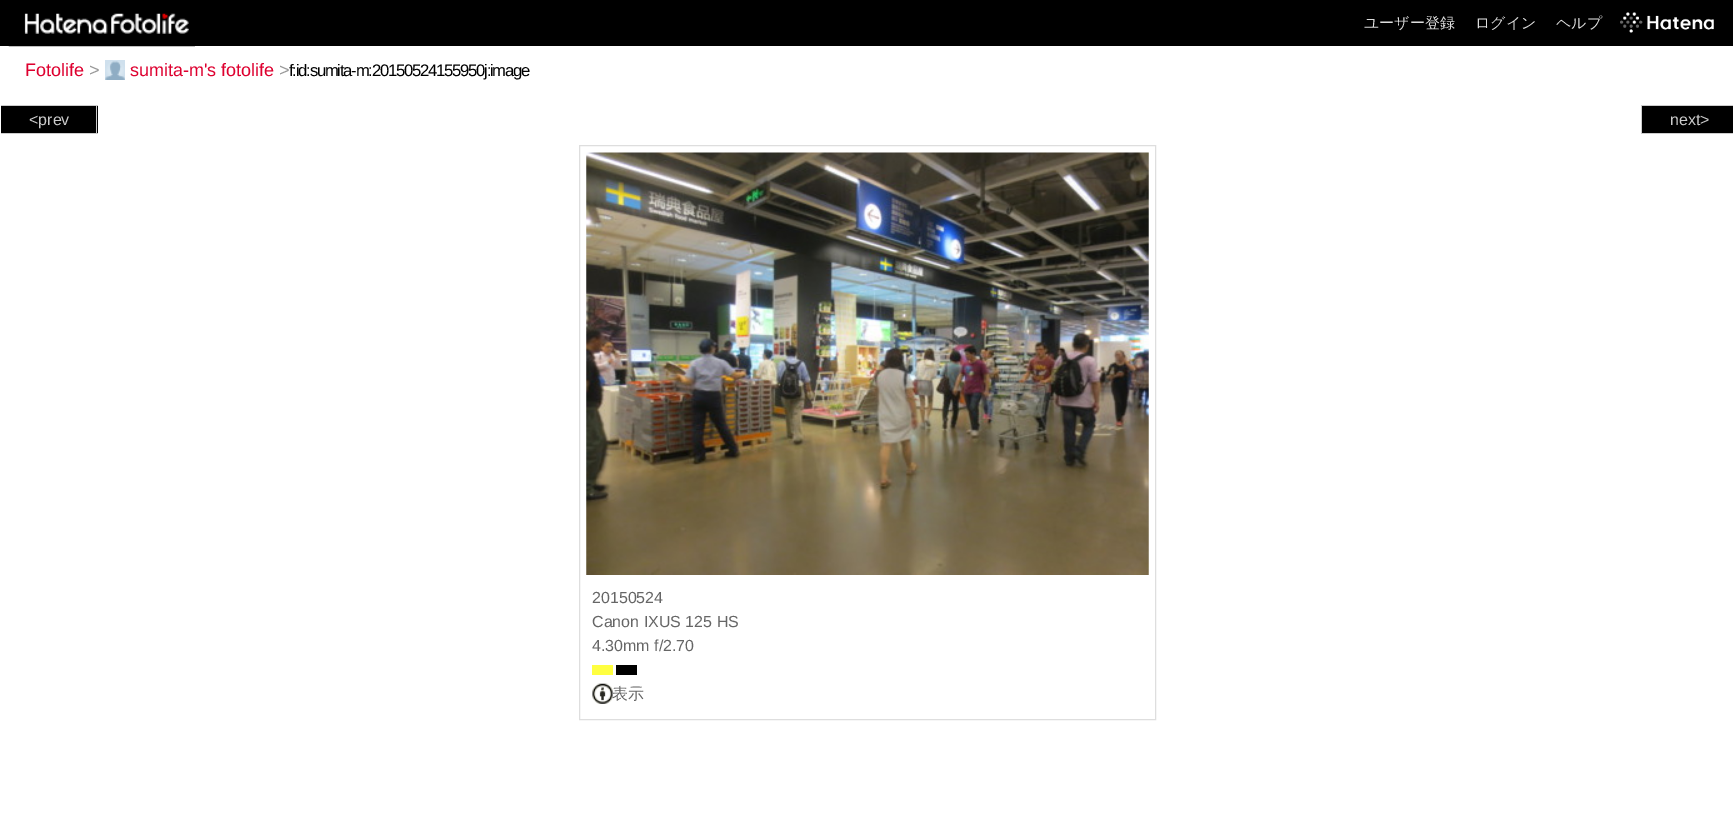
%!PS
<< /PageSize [1733 823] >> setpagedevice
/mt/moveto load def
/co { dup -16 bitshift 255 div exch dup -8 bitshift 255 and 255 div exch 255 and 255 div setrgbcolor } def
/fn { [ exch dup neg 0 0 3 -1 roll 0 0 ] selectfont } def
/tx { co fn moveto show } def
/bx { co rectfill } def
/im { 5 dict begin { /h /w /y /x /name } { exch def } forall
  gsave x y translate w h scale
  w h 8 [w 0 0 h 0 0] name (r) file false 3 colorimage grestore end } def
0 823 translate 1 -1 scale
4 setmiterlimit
0 0 1733 823 16#FFFFFF bx
0 0 1733 46 16#000000 bx
(media/1.raw) 8 13 104 34 im
(media/2.raw) 111 13 84 34 im
(media/3.raw) 1620 12 94 21 im
(media/4.raw) 105 60 20 20 im
1 106 97 27 16#000000 bx
1 105 97 1 16#CCCCCC bx
96 105 1 29 16#CCCCCC bx
1 133 97 1 16#CCCCCC bx
1642 106 91 27 16#000000 bx
1641 105 92 1 16#CCCCCC bx
1641 133 92 1 16#CCCCCC bx
1641 105 1 29 16#CCCCCC bx
16#DEDEDE co
579.5 145.5 576 574 rectstroke
(media/5.raw) 586 152 563 423 im
592 665 21 10 16#FFFF40 bx
616 665 21 10 16#000000 bx
(media/6.raw) 592 683 21 21 im
(ユーザー登録) 1364 28 /WenQuanYiZenHei-Medium 15 16#DDDDDD tx
(ログイン) 1475 28 /WenQuanYiZenHei-Medium 15 16#DDDDDD tx
(ヘルプ) 1556 28 /WenQuanYiZenHei-Medium 15 16#DDDDDD tx
(Fotolife) 25 76 /LiberationSans-Regular 18 16#DE002F tx
(>) 89 76 /LiberationSans-Regular 18 16#999999 tx
(sumita-m's fotolife) 130 76 /LiberationSans-Regular 18 16#DE002F tx
(>) 279 76 /LiberationSans-Regular 18 16#999999 tx
/LiberationSans-Regular 16.7 fn
16#000000 co
289 76 mt -1.25 0 (f:id:sumita-m:20150524155950j:image) ashow
(<prev) 29 125 /LiberationSans-Regular 16 16#CCCCCC tx
(next>) 1670 125 /LiberationSans-Regular 16 16#CCCCCC tx
(20150524) 592 603 /LiberationSans-Regular 16 16#666666 tx
(Canon IXUS 125 HS) 592 627 /LiberationSans-Regular 16 16#666666 tx
(4.30mm f/2.70) 592 651 /LiberationSans-Regular 16 16#666666 tx
(表示) 612 699 /WenQuanYiZenHei-Medium 16 16#666666 tx
showpage
